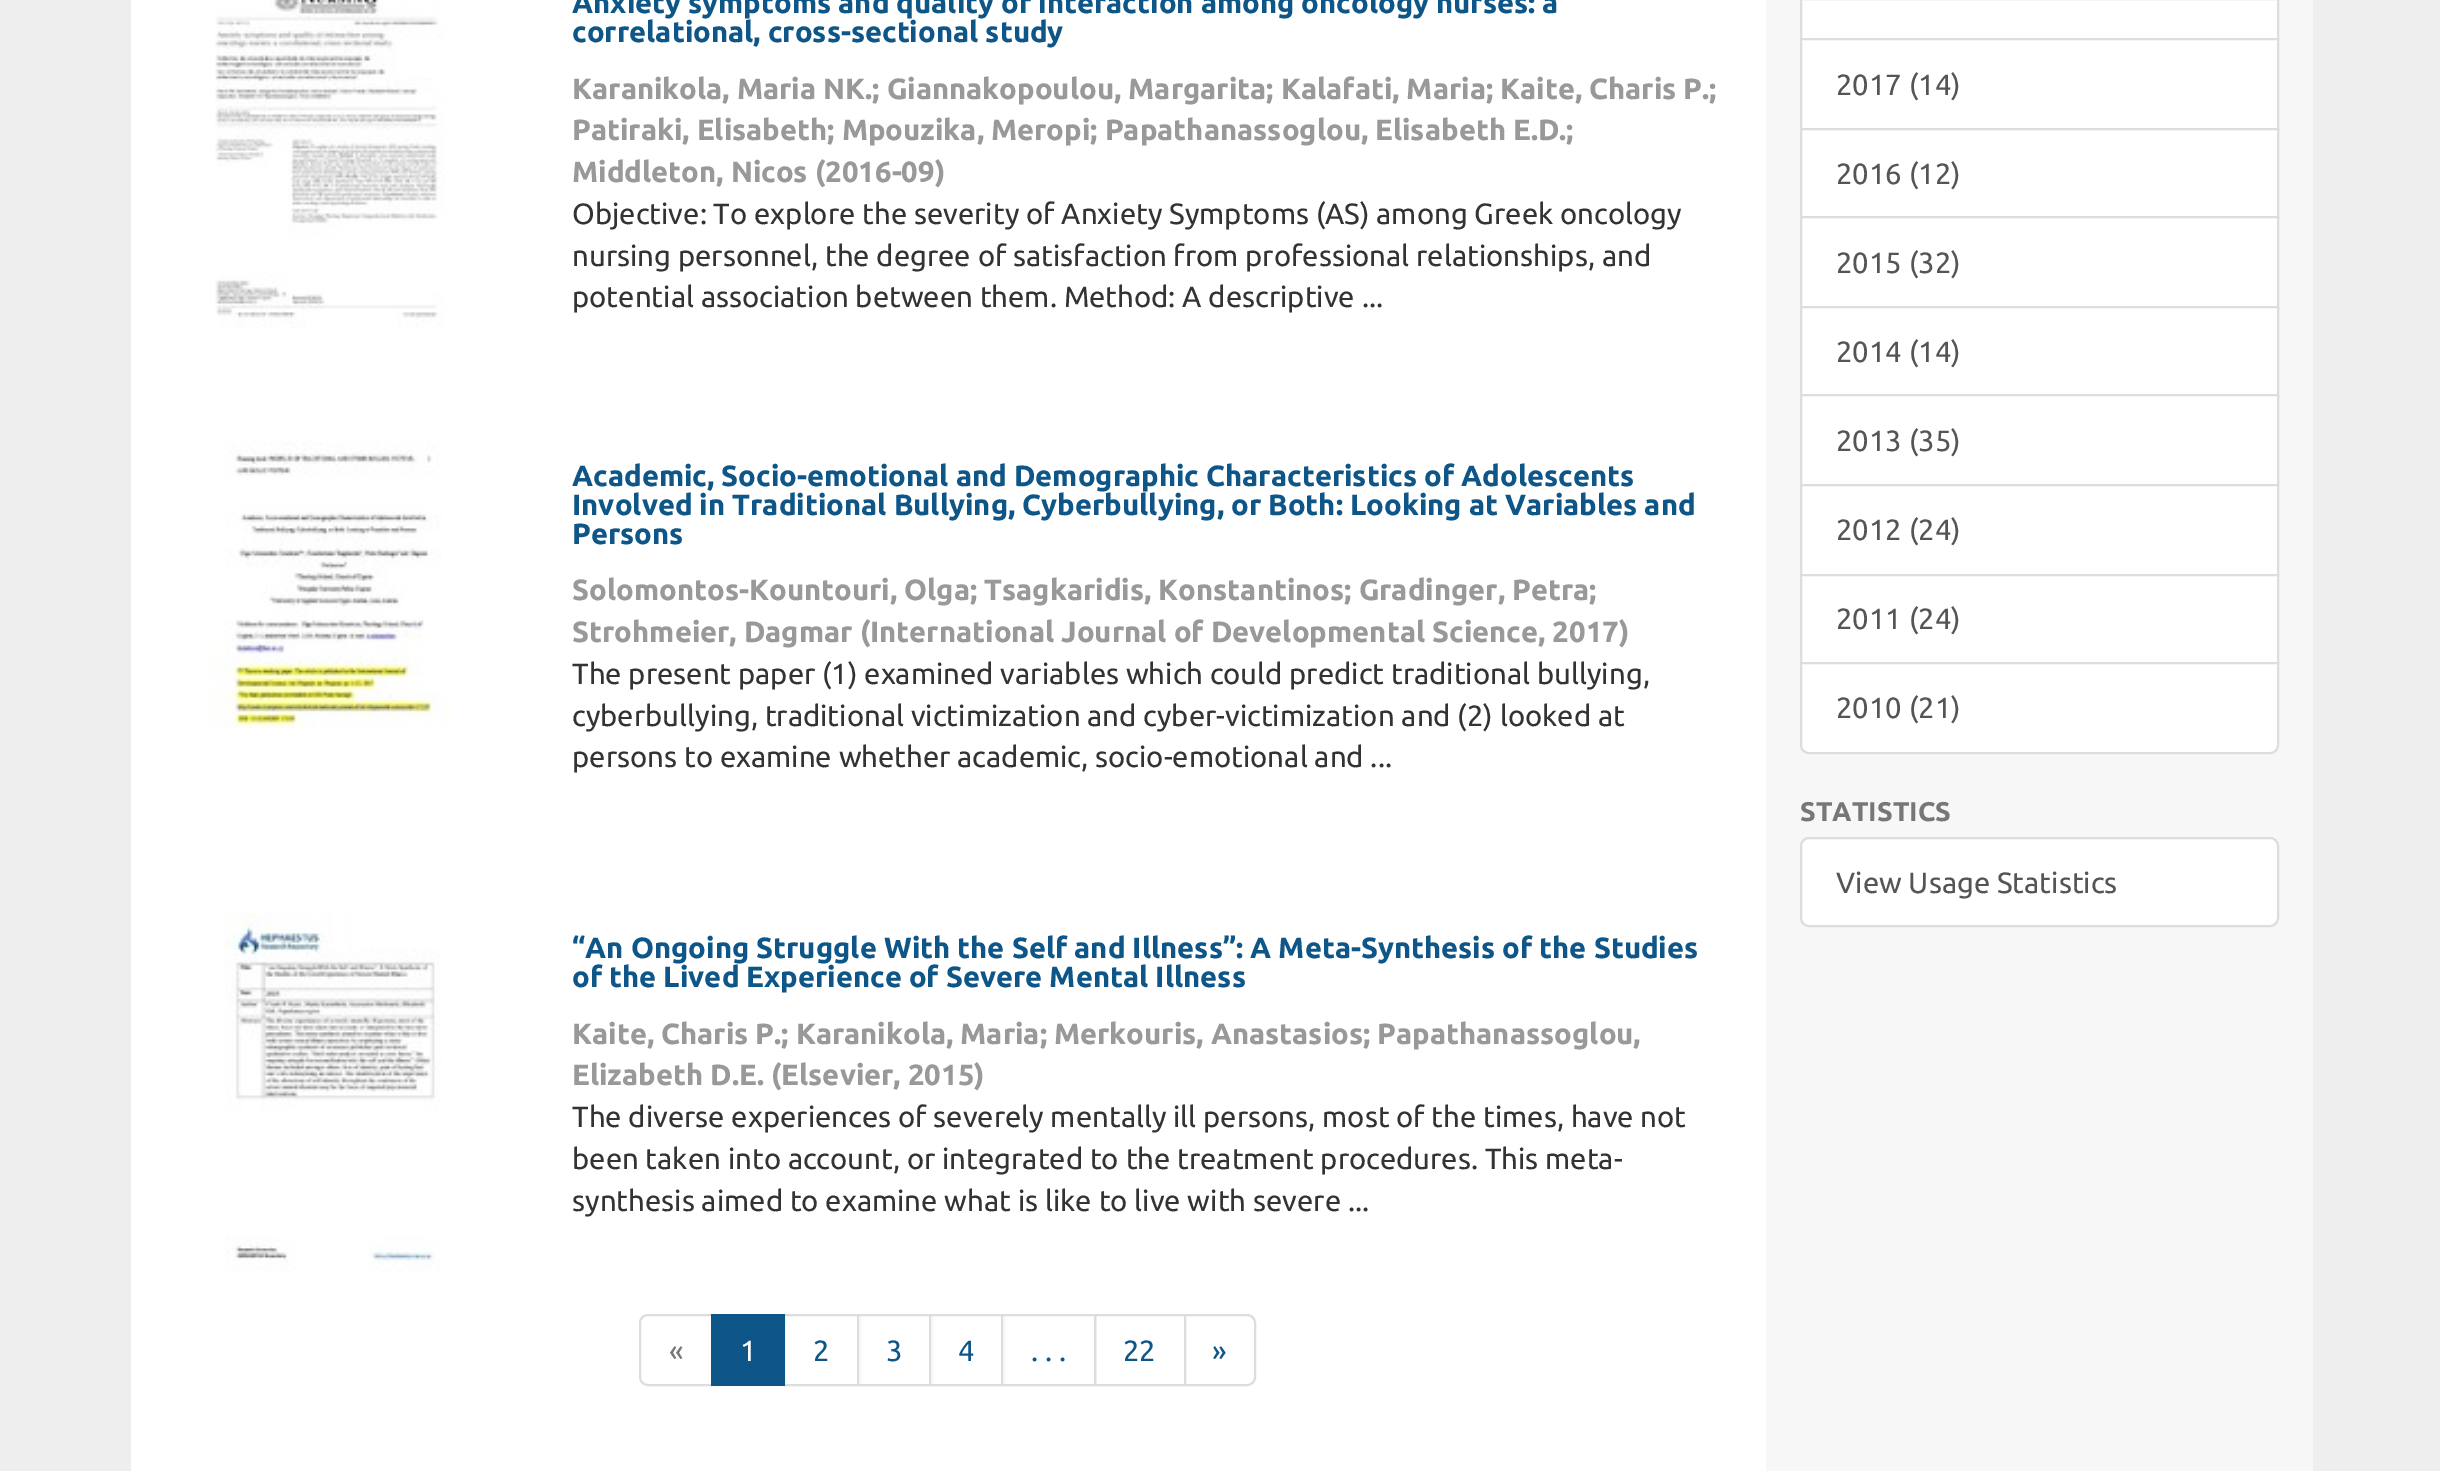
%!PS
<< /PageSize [2440 1471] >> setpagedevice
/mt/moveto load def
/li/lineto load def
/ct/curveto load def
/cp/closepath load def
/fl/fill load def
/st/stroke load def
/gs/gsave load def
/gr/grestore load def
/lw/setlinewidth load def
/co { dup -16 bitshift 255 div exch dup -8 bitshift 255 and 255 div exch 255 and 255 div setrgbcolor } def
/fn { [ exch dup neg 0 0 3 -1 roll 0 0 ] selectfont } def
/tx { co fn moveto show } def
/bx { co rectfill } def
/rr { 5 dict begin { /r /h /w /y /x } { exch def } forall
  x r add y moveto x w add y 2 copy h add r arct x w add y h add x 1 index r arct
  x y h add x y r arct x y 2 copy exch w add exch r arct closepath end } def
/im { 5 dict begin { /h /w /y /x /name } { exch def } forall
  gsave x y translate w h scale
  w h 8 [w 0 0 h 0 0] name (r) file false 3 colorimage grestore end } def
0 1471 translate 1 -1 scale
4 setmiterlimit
0 0 2440 1471 16#EEEEEE bx
1766 0 547 1471 16#F7F7F7 bx
131 0 1635 1471 16#FFFFFF bx
(media/1.raw) 215 0 230 328 im
(media/2.raw) 207 441 244 288 im
(media/3.raw) 221 913 220 360 im
16#DDDDDD co
2 lw
648 1315 mt 712 1315 li 712 1385 li 648 1385 li 643.5 1385 640 1381.5 640 1377 ct 640 1323 li 640 1318.5 643.5 1315 648 1315 ct cp st
784 1315 75 70 rectstroke
711 1314 74 72 16#0E5688 bx
859 1316 1 68 16#FFFFFF bx
16#DDDDDD co
858 1315 73 70 rectstroke
931 1316 1 68 16#FFFFFF bx
16#DDDDDD co
930 1315 73 70 rectstroke
1003 1316 1 68 16#FFFFFF bx
16#DDDDDD co
1002 1315 93 70 rectstroke
1095 1315 90 70 rectstroke
16#FFFFFF co
1185 1315 mt 1247 1315 li 1251.5 1315 1255 1318.5 1255 1323 ct 1255 1377 li 1255 1381.5 1251.5 1385 1247 1385 ct 1185 1385 li cp gs fl gr
16#DDDDDD co
st
1802 0 475 38 16#FFFFFF bx
16#DDDDDD co
1801 -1 477 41 rectstroke
1802 40 475 88 16#FFFFFF bx
16#DDDDDD co
1801 39 477 91 rectstroke
16#FFFFFF co
1801 129 mt 2278 129 li 2278 217 li 1801 217 li cp gs fl gr
16#DDDDDD co
st
16#FFFFFF co
1801 217 mt 2278 217 li 2278 307 li 1801 307 li cp gs fl gr
16#DDDDDD co
st
16#FFFFFF co
1801 307 mt 2278 307 li 2278 395 li 1801 395 li cp gs fl gr
16#DDDDDD co
st
16#FFFFFF co
1801 395 mt 2278 395 li 2278 485 li 1801 485 li cp gs fl gr
16#DDDDDD co
st
16#FFFFFF co
1801 485 mt 2278 485 li 2278 575 li 1801 575 li cp gs fl gr
16#DDDDDD co
st
16#FFFFFF co
1801 575 mt 2278 575 li 2278 663 li 1801 663 li cp gs fl gr
16#DDDDDD co
st
16#FFFFFF co
1801 663 mt 2278 663 li 2278 745 li 2278 749.5 2274.5 753 2270 753 ct 1809 753 li 1804.5 753 1801 749.5 1801 745 ct cp gs fl gr
16#DDDDDD co
st
16#FFFFFF co
1801 838 477 88 8 rr gs fl gr
16#DDDDDD co
st
(Anxiety symptoms and quality of interaction among oncology nurses: a) 572 13 /Ubuntu-Bold 29.25 16#0E5688 tx
(correlational, cross-sectional study) 572 42 /Ubuntu-Bold 29.25 16#0E5688 tx
(Karanikola, Maria NK.; Giannakopoulou, Margarita; Kalafati, Maria; Kaite, Charis P.;) 572 99 /Ubuntu-Bold 29.25 16#999999 tx
(Patiraki, Elisabeth; Mpouzika, Meropi; Papathanassoglou, Elisabeth E.D.;) 572 140 /Ubuntu-Bold 29.25 16#999999 tx
(Middleton, Nicos \(2016-09\)) 572 182 /Ubuntu-Bold 29.25 16#999999 tx
(Objective: To explore the severity of Anxiety Symptoms \(AS\) among Greek oncology) 572 224 /Ubuntu-Regular 29.25 16#333333 tx
(nursing personnel, the degree of satisfaction from professional relationships, and) 572 266 /Ubuntu-Regular 29.25 16#333333 tx
(potential association between them. Method: A descriptive ...) 572 307 /Ubuntu-Regular 29.25 16#333333 tx
(Academic, Socio-emotional and Demographic Characteristics of Adolescents) 572 486 /Ubuntu-Bold 29.25 16#0E5688 tx
(Involved in Traditional Bullying, Cyberbullying, or Both: Looking at Variables and) 572 515 /Ubuntu-Bold 29.25 16#0E5688 tx
(Persons) 572 544 /Ubuntu-Bold 29.25 16#0E5688 tx
(Solomontos-Kountouri, Olga; Tsagkaridis, Konstantinos; Gradinger, Petra;) 572 600 /Ubuntu-Bold 29.25 16#999999 tx
(Strohmeier, Dagmar \(International Journal of Developmental Science, 2017\)) 572 642 /Ubuntu-Bold 29.25 16#999999 tx
(The present paper \(1\) examined variables which could predict traditional bullying,) 572 684 /Ubuntu-Regular 29.25 16#333333 tx
(cyberbullying, traditional victimization and cyber-victimization and \(2\) looked at) 572 726 /Ubuntu-Regular 29.25 16#333333 tx
(persons to examine whether academic, socio-emotional and ...) 572 767 /Ubuntu-Regular 29.25 16#333333 tx
(“An Ongoing Struggle With the Self and Illness”: Α Meta-Synthesis of the Studies) 572 958 /Ubuntu-Bold 29.25 16#0E5688 tx
(of the Lived Experience of Severe Mental Illness) 572 987 /Ubuntu-Bold 29.25 16#0E5688 tx
(Kaite, Charis P.; Karanikola, Maria; Merkouris, Anastasios; Papathanassoglou,) 572 1044 /Ubuntu-Bold 29.25 16#999999 tx
(Elizabeth D.E. \(Elsevier, 2015\)) 572 1085 /Ubuntu-Bold 29.25 16#999999 tx
(The diverse experiences of severely mentally ill persons, most of the times, have not) 572 1127 /Ubuntu-Regular 29.25 16#333333 tx
(been taken into account, or integrated to the treatment procedures. This meta-) 572 1169 /Ubuntu-Regular 29.25 16#333333 tx
(synthesis aimed to examine what is like to live with severe ...) 572 1211 /Ubuntu-Regular 29.25 16#333333 tx
(«) 669 1361 /Ubuntu-Regular 29.25 16#777777 tx
(1) 740 1361 /Ubuntu-Regular 29.25 16#FFFFFF tx
(2) 813 1361 /Ubuntu-Regular 29.25 16#0E5688 tx
(3) 886 1361 /Ubuntu-Regular 29.25 16#0E5688 tx
(4) 958 1361 /Ubuntu-Regular 29.25 16#0E5688 tx
(. . .) 1031 1361 /Ubuntu-Regular 29.25 16#0E5688 tx
(22) 1123 1361 /Ubuntu-Regular 29.25 16#0E5688 tx
(») 1212 1361 /Ubuntu-Regular 29.25 16#0E5688 tx
(2017 \(14\)) 1836 95 /Ubuntu-Regular 29.25 16#555555 tx
(2016 \(12\)) 1836 184 /Ubuntu-Regular 29.25 16#555555 tx
(2015 \(32\)) 1836 273 /Ubuntu-Regular 29.25 16#555555 tx
(2014 \(14\)) 1836 362 /Ubuntu-Regular 29.25 16#555555 tx
(2013 \(35\)) 1836 451 /Ubuntu-Regular 29.25 16#555555 tx
(2012 \(24\)) 1836 540 /Ubuntu-Regular 29.25 16#555555 tx
(2011 \(24\)) 1836 629 /Ubuntu-Regular 29.25 16#555555 tx
(2010 \(21\)) 1836 718 /Ubuntu-Regular 29.25 16#555555 tx
(STATISTICS) 1800 821 /Ubuntu-Bold 27 16#777777 tx
(View Usage Statistics) 1836 893 /Ubuntu-Regular 29.25 16#555555 tx
showpage
